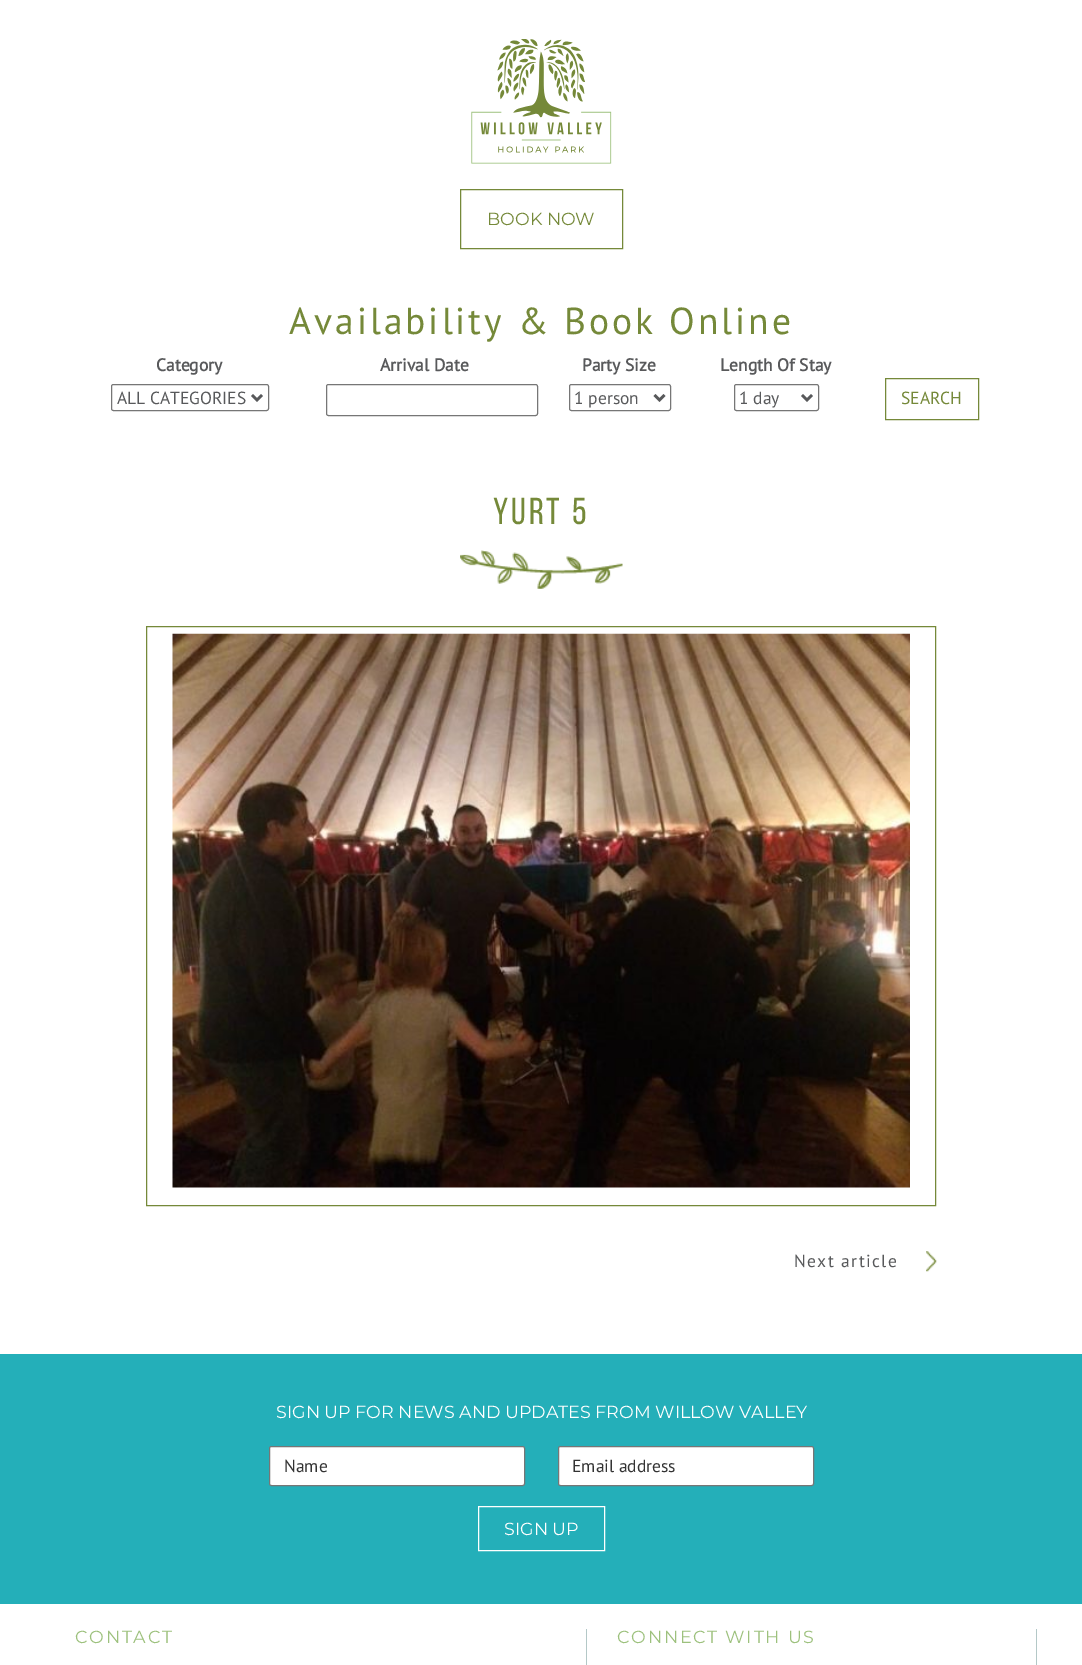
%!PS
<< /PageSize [1082 1665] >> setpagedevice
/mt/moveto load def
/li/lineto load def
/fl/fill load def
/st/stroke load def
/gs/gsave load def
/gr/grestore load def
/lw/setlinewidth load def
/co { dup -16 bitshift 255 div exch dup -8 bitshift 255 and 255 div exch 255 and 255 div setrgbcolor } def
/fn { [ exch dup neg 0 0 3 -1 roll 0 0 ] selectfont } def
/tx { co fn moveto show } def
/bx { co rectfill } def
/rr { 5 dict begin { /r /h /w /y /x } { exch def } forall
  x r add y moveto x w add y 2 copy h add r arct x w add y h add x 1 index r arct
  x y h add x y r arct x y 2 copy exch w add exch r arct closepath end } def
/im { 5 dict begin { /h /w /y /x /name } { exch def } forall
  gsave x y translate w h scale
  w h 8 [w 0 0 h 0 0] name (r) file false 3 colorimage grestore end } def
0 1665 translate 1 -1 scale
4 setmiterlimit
0 0 1082 1665 16#FFFFFF bx
(media/1.raw) 471 39 141 125 im
16#758939 co
460.5 189.5 162 59 rectstroke
16#767676 co
111.5 384.5 157 26 2 rr st
16#58595B co
2.5 lw
252 395 mt 257 400 li 262 395 li st
16#767676 co
1 lw
326.5 384.5 211 31 2 rr st
569.5 384.5 101 26 2 rr st
16#58595B co
2.5 lw
654.5 395 mt 659.5 400 li 664.5 395 li st
16#767676 co
1 lw
734.5 384.5 84 26 2 rr st
16#58595B co
2.5 lw
802 395 mt 807 400 li 812 395 li st
16#758939 co
1 lw
885.5 378.5 93 41 rectstroke
(media/2.raw) 460 550 163 39 im
146.5 626.5 789 579 rectstroke
(media/3.raw) 172 633 738 555 im
(media/4.raw) 926 1251 11 21 im
0 1354 1082 250 16#24AFB9 bx
16#FFFFFF co
269.5 1446.5 255 39 2 rr gs fl gr
16#767676 co
st
16#FFFFFF co
558.5 1446.5 255 39 2 rr gs fl gr
16#767676 co
st
16#FFFFFF co
478.5 1506.5 126 44 rectstroke
586 1629 1 36 16#B4C8C7 bx
1036 1629 1 36 16#B4C8C7 bx
(BOOK NOW) 487 225 /Montserrat-Regular 17.5 16#758939 tx
/PTSans-Regular 37.5 fn
289 334 mt 3 0 (Availability & Book Online) ashow
(Category) 156 371 /PTSans-Bold 17.5 16#58595B tx
(ALL CATEGORIES) 117 404 /PTSans-Regular 17.5 16#58595B tx
(Arrival Date) 380 371 /PTSans-Bold 17.5 16#58595B tx
(Party Size) 582 371 /PTSans-Bold 17.5 16#58595B tx
(1 person) 574 404 /PTSans-Regular 17.5 16#58595B tx
(Length Of Stay) 720 371 /PTSans-Bold 17.5 16#58595B tx
(1 day) 739 404 /PTSans-Regular 17.5 16#58595B tx
(SEARCH) 901 404 /PTSans-Regular 17.5 16#758939 tx
/BebasNeue-Regular 37.5 fn
493 524 mt 3 0 (YURT 5) ashow
/PTSans-Regular 17.5 fn
16#58595B co
794 1267 mt 1.4 0 (Next article) ashow
(SIGN UP FOR NEWS AND UPDATES FROM WILLOW VALLEY) 276 1418 /Montserrat-Regular 17.5 16#FFFFFF tx
(Name) 284 1472 /PTSans-Regular 17.5 16#333333 tx
(Email address) 572 1472 /PTSans-Regular 17.5 16#333333 tx
(SIGN UP) 504 1535 /Montserrat-Regular 17.5 16#FFFFFF tx
16#9DC17D co
75 1643 mt 1.75 0 (CONTACT) ashow
617 1643 mt 1.75 0 (CONNECT WITH US) ashow
showpage
